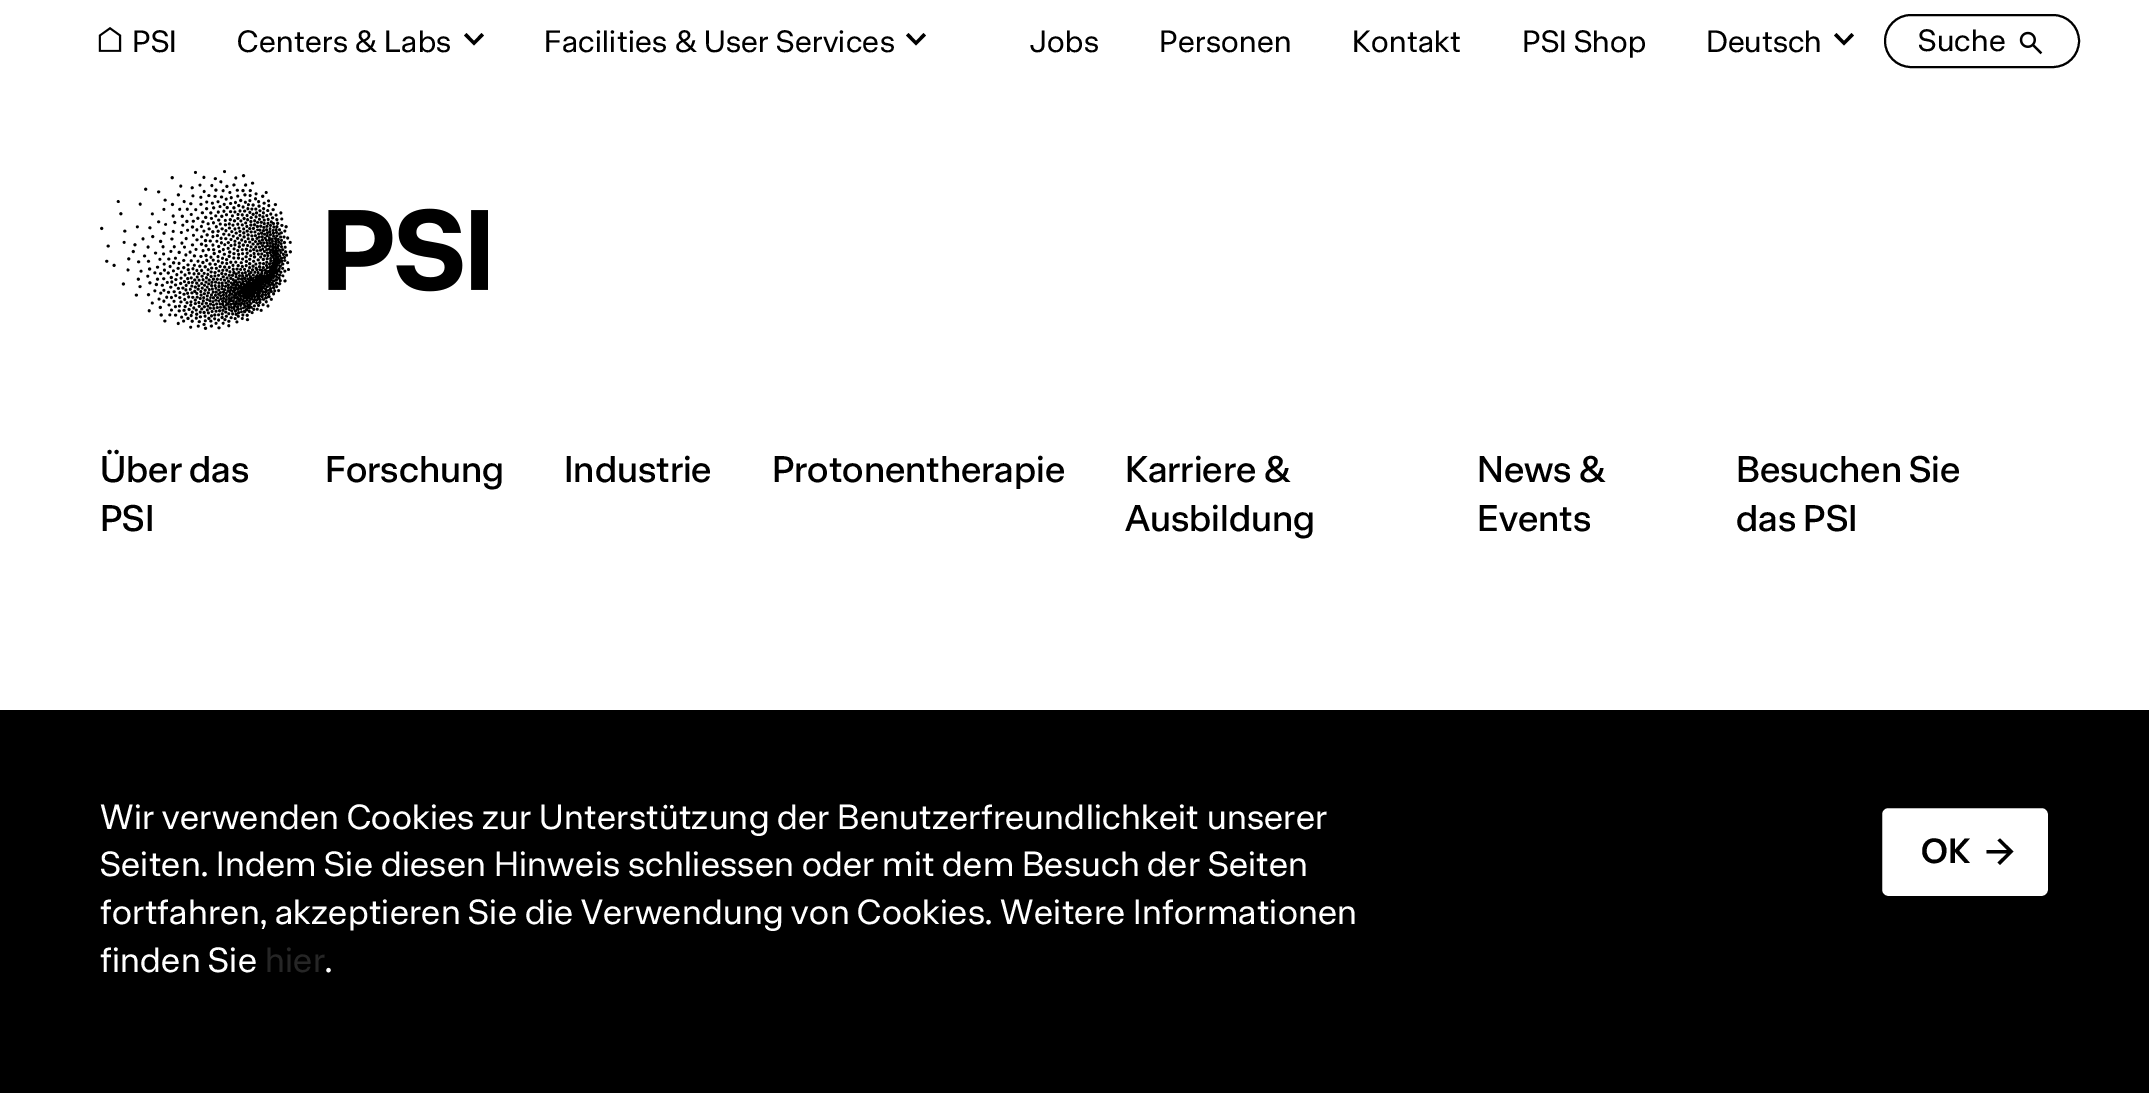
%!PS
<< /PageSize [2149 1093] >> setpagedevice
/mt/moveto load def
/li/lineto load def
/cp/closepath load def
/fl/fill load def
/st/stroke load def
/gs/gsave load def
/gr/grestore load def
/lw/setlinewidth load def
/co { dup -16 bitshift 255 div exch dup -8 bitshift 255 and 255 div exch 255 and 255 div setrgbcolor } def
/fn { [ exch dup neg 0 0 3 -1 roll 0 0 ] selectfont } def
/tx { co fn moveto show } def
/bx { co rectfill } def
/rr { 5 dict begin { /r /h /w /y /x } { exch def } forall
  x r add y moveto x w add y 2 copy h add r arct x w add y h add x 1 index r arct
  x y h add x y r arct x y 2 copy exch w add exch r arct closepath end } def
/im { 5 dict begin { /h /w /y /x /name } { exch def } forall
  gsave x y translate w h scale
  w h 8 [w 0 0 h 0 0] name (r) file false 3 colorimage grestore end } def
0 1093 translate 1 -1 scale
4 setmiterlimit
0 0 2149 1093 16#FFFFFF bx
(media/1.raw) 98 27 24 25 im
16#000000 co
474 45.5 mt 464 35.5 li 466.5 33 li 474 41 li 481.5 33 li 484 35.5 li cp fl
916 45.5 mt 906 35.5 li 908.5 33 li 916 41 li 923.5 33 li 926 35.5 li cp fl
1844 45.5 mt 1834 35.5 li 1836.5 33 li 1844 41 li 1851.5 33 li 1854 35.5 li cp fl
2 lw
1885 15 194 52 26 rr st
(media/2.raw) 2019 31 24 24 im
(media/3.raw) 100 170 388 160 im
0 710 2149 383 16#000000 bx
16#FFFFFF co
1881 807 168 90 7 rr gs fl gr
16#000000 co
st
2007 853.5 mt 1986.5 853.5 li 1986.5 850 li 2007 850 li 1997.5 840.5 li 2000 838.5 li 2013.5 851.5 li 2000 865 li 1997.5 862.5 li cp fl
/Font-Regular 30 fn
132 52 mt .4 0 (PSI) ashow
237 52 mt .4 0 (Centers & Labs) ashow
544 52 mt .4 0 (Facilities & User Services) ashow
1030 52 mt .4 0 (Jobs) ashow
1159 52 mt .4 0 (Personen) ashow
1352 52 mt .4 0 (Kontakt) ashow
1522 52 mt .4 0 (PSI Shop) ashow
(Deutsch) 1706 52 /Font-Regular 30 16#000000 tx
1918 51 mt .4 0 (Suche) ashow
(Über das) 100 482 /Font-Medium 36 16#000000 tx
(PSI) 100 531 /Font-Medium 36 16#000000 tx
(Forschung) 325 482 /Font-Medium 36 16#000000 tx
(Industrie) 564 482 /Font-Medium 36 16#000000 tx
(Protonentherapie) 772 482 /Font-Medium 36 16#000000 tx
(Karriere &) 1125 482 /Font-Medium 36 16#000000 tx
(Ausbildung) 1125 531 /Font-Medium 36 16#000000 tx
(News &) 1477 482 /Font-Medium 36 16#000000 tx
(Events) 1477 531 /Font-Medium 36 16#000000 tx
(Besuchen Sie) 1736 482 /Font-Medium 36 16#000000 tx
(das PSI) 1736 531 /Font-Medium 36 16#000000 tx
/Font-Regular 34 fn
16#FFFFFF co
100 829 mt .4 0 (Wir verwenden Cookies zur Unterstützung der Benutzerfreundlichkeit unserer) ashow
100 876 mt .4 0 (Seiten. Indem Sie diesen Hinweis schliessen oder mit dem Besuch der Seiten) ashow
100 924 mt .4 0 (fortfahren, akzeptieren Sie die Verwendung von Cookies. Weitere Informationen) ashow
100 972 mt .4 0 (finden Sie) ashow
16#262626 co
265 972 mt .4 0 (hier) ashow
16#FFFFFF co
325 972 mt .4 0 (.) ashow
(OK) 1921 863 /Font-SemiBold 34 16#000000 tx
showpage
